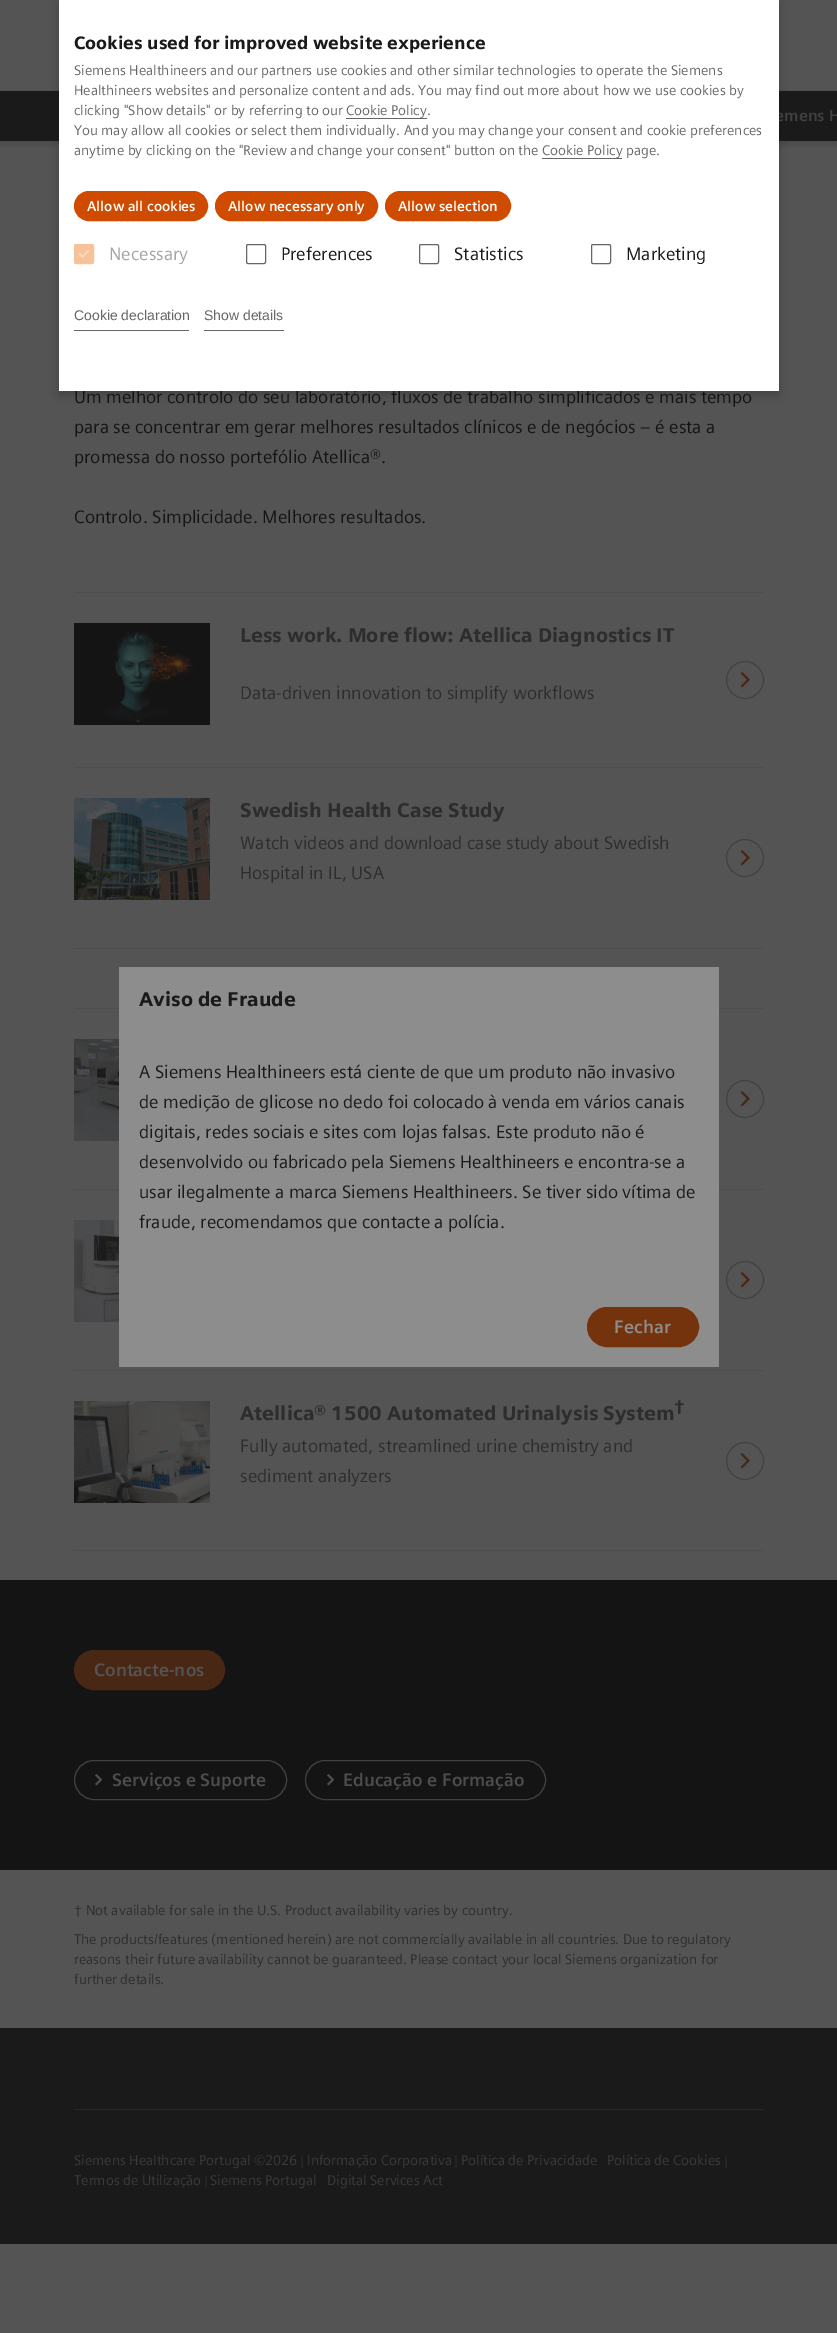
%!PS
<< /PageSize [837 2333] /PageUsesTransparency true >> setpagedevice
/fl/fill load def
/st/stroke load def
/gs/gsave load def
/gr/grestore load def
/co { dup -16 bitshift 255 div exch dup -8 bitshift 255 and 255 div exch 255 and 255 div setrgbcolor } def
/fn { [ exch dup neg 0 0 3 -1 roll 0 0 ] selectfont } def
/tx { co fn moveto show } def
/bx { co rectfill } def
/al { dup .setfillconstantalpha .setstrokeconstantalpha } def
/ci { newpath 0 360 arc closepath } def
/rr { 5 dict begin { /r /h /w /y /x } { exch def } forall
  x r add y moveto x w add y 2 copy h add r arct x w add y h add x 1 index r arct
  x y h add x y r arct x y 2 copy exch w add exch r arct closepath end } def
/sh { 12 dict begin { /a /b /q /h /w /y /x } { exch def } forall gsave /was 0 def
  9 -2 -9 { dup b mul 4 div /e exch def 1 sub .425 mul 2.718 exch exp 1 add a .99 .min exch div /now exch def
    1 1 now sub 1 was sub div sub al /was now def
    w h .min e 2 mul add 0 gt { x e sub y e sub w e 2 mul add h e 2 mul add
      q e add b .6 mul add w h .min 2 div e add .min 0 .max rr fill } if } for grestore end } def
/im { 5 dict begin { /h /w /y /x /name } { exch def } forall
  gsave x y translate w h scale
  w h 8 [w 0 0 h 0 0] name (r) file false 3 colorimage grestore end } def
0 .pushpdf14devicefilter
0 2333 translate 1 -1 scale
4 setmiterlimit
0 0 837 2333 16#545454 bx
0 90 837 1 16#4F4F4F bx
16#1B1B1B co
0 95 837 50 0 3.5 .2 sh
0 91 837 50 16#1A1A1A bx
16#000000 co
59 4 720 391 0 4.5 .2 sh
74 592 690 1 16#4D4D4D bx
74 767 690 1 16#4D4D4D bx
(media/2.raw) 74 623 136 102 im
16#414141 co
745 680 18.5 ci st
(media/3.raw) 740 672 10 16 im
74 948 690 1 16#4D4D4D bx
(media/4.raw) 74 798 136 102 im
16#414141 co
745 858 18.5 ci st
(media/3.raw) 740 850 10 16 im
74 1008 690 1 16#4D4D4D bx
74 1189 690 1 16#4D4D4D bx
(media/5.raw) 74 1039 45 102 im
16#414141 co
745 1099 18.5 ci st
(media/3.raw) 740 1091 10 16 im
74 1370 690 1 16#4D4D4D bx
(media/6.raw) 74 1220 45 102 im
16#414141 co
745 1280 18.5 ci st
(media/3.raw) 740 1272 10 16 im
74 1550 690 1 16#4D4D4D bx
(media/7.raw) 74 1401 136 102 im
16#414141 co
745 1461 18.5 ci st
(media/3.raw) 740 1453 10 16 im
119 967 600 400 16#8D8D8D bx
16#75330D co
587.5 1307.5 111 39 19.5 rr gs fl gr
st
0 1580 837 290 16#141414 bx
16#482714 co
74.5 1650.5 150 39 19.5 rr gs fl gr
st
16#414141 co
74.5 1760.5 212 39 19.5 rr st
(media/8.raw) 95 1773 8 13 im
305.5 1760.5 240 39 19.5 rr st
(media/8.raw) 327 1773 8 13 im
0 2028 837 216 16#1A1A1A bx
74 2109 690 1 16#272727 bx
(emens H) 775 121 /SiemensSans-Bold 16 16#414141 tx
(Um melhor controlo do seu laboratório, fluxos de trabalho simplificados e mais tempo) 74 403 /SiemensSans-Regular 18 16#141414 tx
59 0 720 391 16#FFFFFF bx
16#666666 co
591.5 244.5 19 19 1.5 rr st
(Marketing) 626 260 /SiemensSans-Regular 18 16#1A1A1A tx
16#666666 co
419.5 244.5 19 19 1.5 rr st
(Statistics) 454 260 /SiemensSans-Regular 18 16#1A1A1A tx
16#666666 co
246.5 244.5 19 19 1.5 rr st
(Preferences) 281 260 /SiemensSans-Regular 18 16#1A1A1A tx
16#F7C29A co
74.5 244.5 19 19 1.5 rr gs fl gr
st
(media/1.raw) 78 250 12 8 im
(Necessary) 109 260 /SiemensSans-Regular 18 16#A3A3A3 tx
16#CF4B00 co
385.5 191.5 125 29 14.5 rr gs fl gr
st
(Allow selection) 398 211 /SiemensSans-Bold 14 16#FFFFFF tx
16#CF4B00 co
215.5 191.5 162 29 14.5 rr gs fl gr
st
(Allow necessary only) 228 211 /SiemensSans-Bold 14 16#FFFFFF tx
16#CF4B00 co
74.5 191.5 133 29 14.5 rr gs fl gr
st
(Allow all cookies) 87 211 /SiemensSans-Bold 14 16#FFFFFF tx
(Show details) 204 320 /LiberationSans-Regular 14 16#666666 tx
204 330 80 1 16#666666 bx
(Cookie declaration) 74 320 /LiberationSans-Regular 14 16#666666 tx
74 330 115 1 16#666666 bx
542 158 80 1 16#666666 bx
(Cookie Policy page.) 542 155 /SiemensSans-Regular 14 16#666666 tx
(anytime by clicking on the "Review and change your consent" button on the) 74 155 /SiemensSans-Regular 14 16#666666 tx
(You may allow all cookies or select them individually. And you may change your consent and cookie preferences) 74 135 /SiemensSans-Regular 14 16#666666 tx
346 118 81 1 16#666666 bx
(Cookie Policy.) 346 115 /SiemensSans-Regular 14 16#666666 tx
(clicking "Show details" or by referring to our) 74 115 /SiemensSans-Regular 14 16#666666 tx
(Healthineers websites and personalize content and ads. You may find out more about how we use cookies by) 74 95 /SiemensSans-Regular 14 16#666666 tx
(Siemens Healthineers and our partners use cookies and other similar technologies to operate the Siemens) 74 75 /SiemensSans-Regular 14 16#666666 tx
(Cookies used for improved website experience) 74 49 /SiemensSans-Black 18 16#1A1A1A tx
(para se concentrar em gerar melhores resultados clínicos e de negócios – é esta a) 74 433 /SiemensSans-Regular 18 16#141414 tx
(promessa do nosso portefólio Atellica®.) 74 463 /SiemensSans-Regular 18 16#141414 tx
(Controlo. Simplicidade. Melhores resultados.) 74 523 /SiemensSans-Regular 18 16#141414 tx
(Less work. More flow: Atellica Diagnostics IT) 240 642 /SiemensSans-Black 20 16#2D2D2D tx
(Data-driven innovation to simplify workflows) 240 699 /SiemensSans-Regular 18 16#2D2D2D tx
(Swedish Health Case Study) 240 817 /SiemensSans-Black 20 16#2D2D2D tx
(Watch videos and download case study about Swedish) 240 849 /SiemensSans-Regular 18 16#2D2D2D tx
(Hospital in IL, USA) 240 879 /SiemensSans-Regular 18 16#2D2D2D tx
(Atellica® 1500 Automated Urinalysis System) 240 1420 /SiemensSans-Black 20 16#2D2D2D tx
(†) 674 1412 /SiemensSans-Black 17 16#2D2D2D tx
(Fully automated, streamlined urine chemistry and) 240 1452 /SiemensSans-Regular 18 16#2D2D2D tx
(sediment analyzers) 240 1482 /SiemensSans-Regular 18 16#2D2D2D tx
(Aviso de Fraude) 139 1006 /SiemensSans-Black 20 16#1A1A1A tx
(A Siemens Healthineers está ciente de que um produto não invasivo) 139 1078 /SiemensSans-Regular 18 16#1A1A1A tx
(de medição de glicose no dedo foi colocado à venda em vários canais) 139 1108 /SiemensSans-Regular 18 16#1A1A1A tx
(digitais, redes sociais e sites com lojas falsas. Este produto não é) 139 1138 /SiemensSans-Regular 18 16#1A1A1A tx
(desenvolvido ou fabricado pela Siemens Healthineers e encontra-se a) 139 1168 /SiemensSans-Regular 18 16#1A1A1A tx
(usar ilegalmente a marca Siemens Healthineers. Se tiver sido vítima de) 139 1198 /SiemensSans-Regular 18 16#1A1A1A tx
(fraude, recomendamos que contacte a polícia.) 139 1228 /SiemensSans-Regular 18 16#1A1A1A tx
(Fechar) 614 1333 /SiemensSans-Bold 18 16#8D8D8D tx
(Contacte-nos) 94 1676 /SiemensSans-Bold 18 16#545454 tx
(Serviços e Suporte) 112 1786 /SiemensSans-Bold 18 16#4D4D4D tx
(Educação e Formação) 343 1786 /SiemensSans-Bold 18 16#4D4D4D tx
(† Not available for sale in the U.S. Product availability varies by country.) 74 1915 /SiemensSans-Regular 14 16#2D2D2D tx
(The products/features \(mentioned herein\) are not commercially available in all countries. Due to regulatory) 74 1944 /SiemensSans-Regular 14 16#2D2D2D tx
(reasons their future availability cannot be guaranteed. Please contact your local Siemens organization for) 74 1964 /SiemensSans-Regular 14 16#2D2D2D tx
(further details.) 74 1984 /SiemensSans-Regular 14 16#2D2D2D tx
(Siemens Healthcare Portugal ©2026) 74 2165 /SiemensSans-Regular 14 16#3A3A3A tx
(|) 300 2165 /SiemensSans-Regular 14 16#2D2D2D tx
(Informação Corporativa) 307 2165 /SiemensSans-Regular 14 16#3A3A3A tx
(|) 454 2165 /SiemensSans-Regular 14 16#2D2D2D tx
(Política de Privacidade) 461 2165 /SiemensSans-Regular 14 16#3A3A3A tx
(Política de Cookies) 607 2165 /SiemensSans-Regular 14 16#3A3A3A tx
(|) 724 2165 /SiemensSans-Regular 14 16#2D2D2D tx
(Termos de Utilização) 74 2185 /SiemensSans-Regular 14 16#3A3A3A tx
(|) 204 2185 /SiemensSans-Regular 14 16#2D2D2D tx
(Siemens Portugal) 210 2185 /SiemensSans-Regular 14 16#3A3A3A tx
(Digital Services Act) 327 2185 /SiemensSans-Regular 14 16#3A3A3A tx
.poppdf14devicefilter showpage
